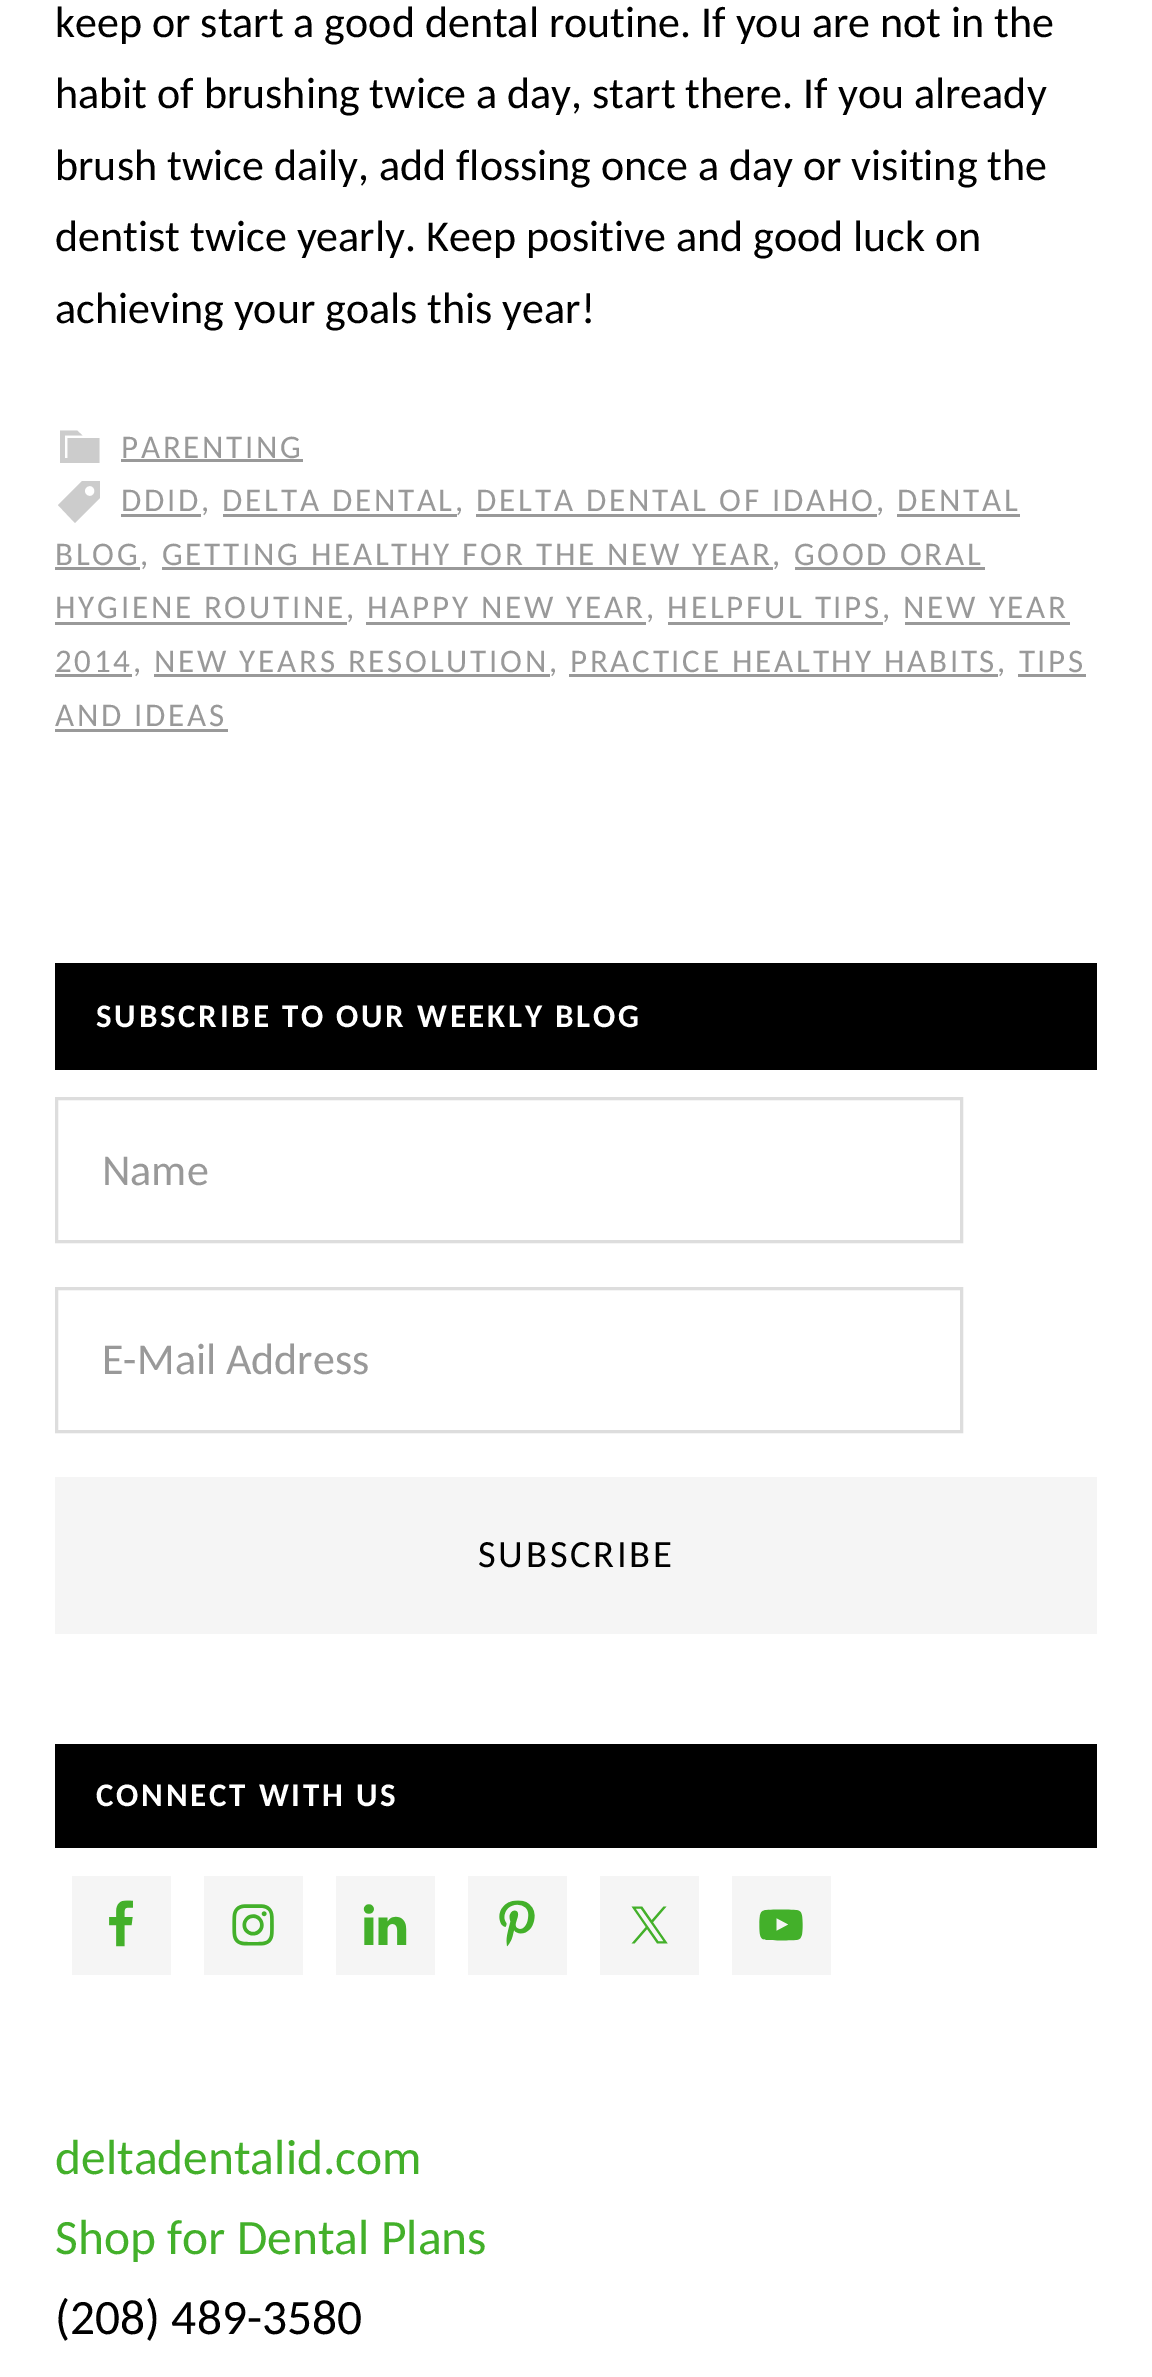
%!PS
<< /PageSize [1152 2377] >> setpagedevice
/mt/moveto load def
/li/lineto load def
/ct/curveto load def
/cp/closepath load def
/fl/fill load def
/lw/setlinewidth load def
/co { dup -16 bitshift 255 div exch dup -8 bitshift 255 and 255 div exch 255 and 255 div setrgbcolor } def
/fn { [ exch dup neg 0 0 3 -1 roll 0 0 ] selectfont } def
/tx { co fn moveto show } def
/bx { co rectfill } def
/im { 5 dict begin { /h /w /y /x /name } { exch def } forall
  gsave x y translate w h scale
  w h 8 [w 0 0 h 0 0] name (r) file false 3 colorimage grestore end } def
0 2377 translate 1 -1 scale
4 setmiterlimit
0 0 1152 2377 16#FFFFFF bx
16#CCCCCC co
67.5 438 mt 99.5 438 li 99.5 463 li 60 463 li 60 430.5 li 77 430.5 li 82.5 435.5 li 65 435.5 li 65 458 li 67.5 458 li cp fl
121 459 182 3 16#999999 bx
16#CCCCCC co
82 481 mt 100 481 li 100 498 li 75 523 li 58 505 li cp 90 496 mt 96 496 96 486 90 486 ct 83 486 83 496 90 496 ct cp fl
121 514 80 3 16#999999 bx
223 514 234 3 16#999999 bx
476 514 401 3 16#999999 bx
897 514 123 3 16#999999 bx
55 567 85 3 16#999999 bx
162 567 611 3 16#999999 bx
795 567 190 3 16#999999 bx
55 622 292 3 16#999999 bx
366 622 280 3 16#999999 bx
668 622 215 3 16#999999 bx
905 622 165 3 16#999999 bx
55 674 77 3 16#999999 bx
154 674 396 3 16#999999 bx
569 674 429 3 16#999999 bx
1018 674 68 3 16#999999 bx
55 729 173 3 16#999999 bx
55 963 1042 107 16#000000 bx
16#DDDDDD co
3 lw
56.5 1098.5 905 143 rectstroke
56.5 1288.5 905 143 rectstroke
55 1477 1042 157 16#F5F5F5 bx
55 1744 1042 104 16#000000 bx
72 1876 99 99 16#F5F5F5 bx
(media/1.raw) 109 1900 24 47 im
204 1876 99 99 16#F5F5F5 bx
(media/2.raw) 232 1904 42 42 im
336 1876 99 99 16#F5F5F5 bx
(media/3.raw) 363 1904 44 41 im
468 1876 99 99 16#F5F5F5 bx
(media/4.raw) 499 1900 36 47 im
600 1876 99 99 16#F5F5F5 bx
(media/5.raw) 631 1906 37 38 im
732 1876 99 99 16#F5F5F5 bx
(media/6.raw) 759 1909 44 32 im
(keep or start a good dental routine. If you are not in the) 55 37 /Carlito-Regular 44 16#000000 tx
(habit of brushing twice a day, start there. If you already) 55 108 /Carlito-Regular 44 16#000000 tx
(brush twice daily, add flossing once a day or visiting the) 55 180 /Carlito-Regular 44 16#000000 tx
(dentist twice yearly. Keep positive and good luck on) 55 251 /Carlito-Regular 44 16#000000 tx
(achieving your goals this year!) 55 323 /Carlito-Regular 44 16#000000 tx
/Carlito-Regular 33 fn
16#999999 co
121 458 mt 2.75 0 (PARENTING) ashow
121 511 mt 2.75 0 (DDID, DELTA DENTAL, DELTA DENTAL OF IDAHO, DENTAL) ashow
55 565 mt 2.75 0 (BLOG, GETTING HEALTHY FOR THE NEW YEAR, GOOD ORAL) ashow
55 618 mt 2.75 0 (HYGIENE ROUTINE, HAPPY NEW YEAR, HELPFUL TIPS, NEW YEAR) ashow
55 672 mt 2.75 0 (2014, NEW YEARS RESOLUTION, PRACTICE HEALTHY HABITS, TIPS) ashow
55 726 mt 2.75 0 (AND IDEAS) ashow
/Carlito-Bold 33 fn
16#FFFFFF co
96 1027 mt 2.75 0 (SUBSCRIBE TO OUR WEEKLY BLOG) ashow
(Name) 102 1185 /Carlito-Regular 44 16#999999 tx
(E-Mail Address) 102 1374 /Carlito-Regular 44 16#999999 tx
/Carlito-Regular 38.5 fn
16#000000 co
478 1567 mt 2.75 0 (SUBSCRIBE) ashow
/Carlito-Bold 33 fn
16#FFFFFF co
96 1806 mt 2.75 0 (CONNECT WITH US) ashow
(deltadentalid.com) 55 2174 /Carlito-Regular 49.5 16#43B02A tx
(Shop for Dental Plans) 55 2254 /Carlito-Regular 49.5 16#43B02A tx
(\(208\) 489-3580) 55 2334 /Carlito-Regular 49.5 16#000000 tx
showpage
